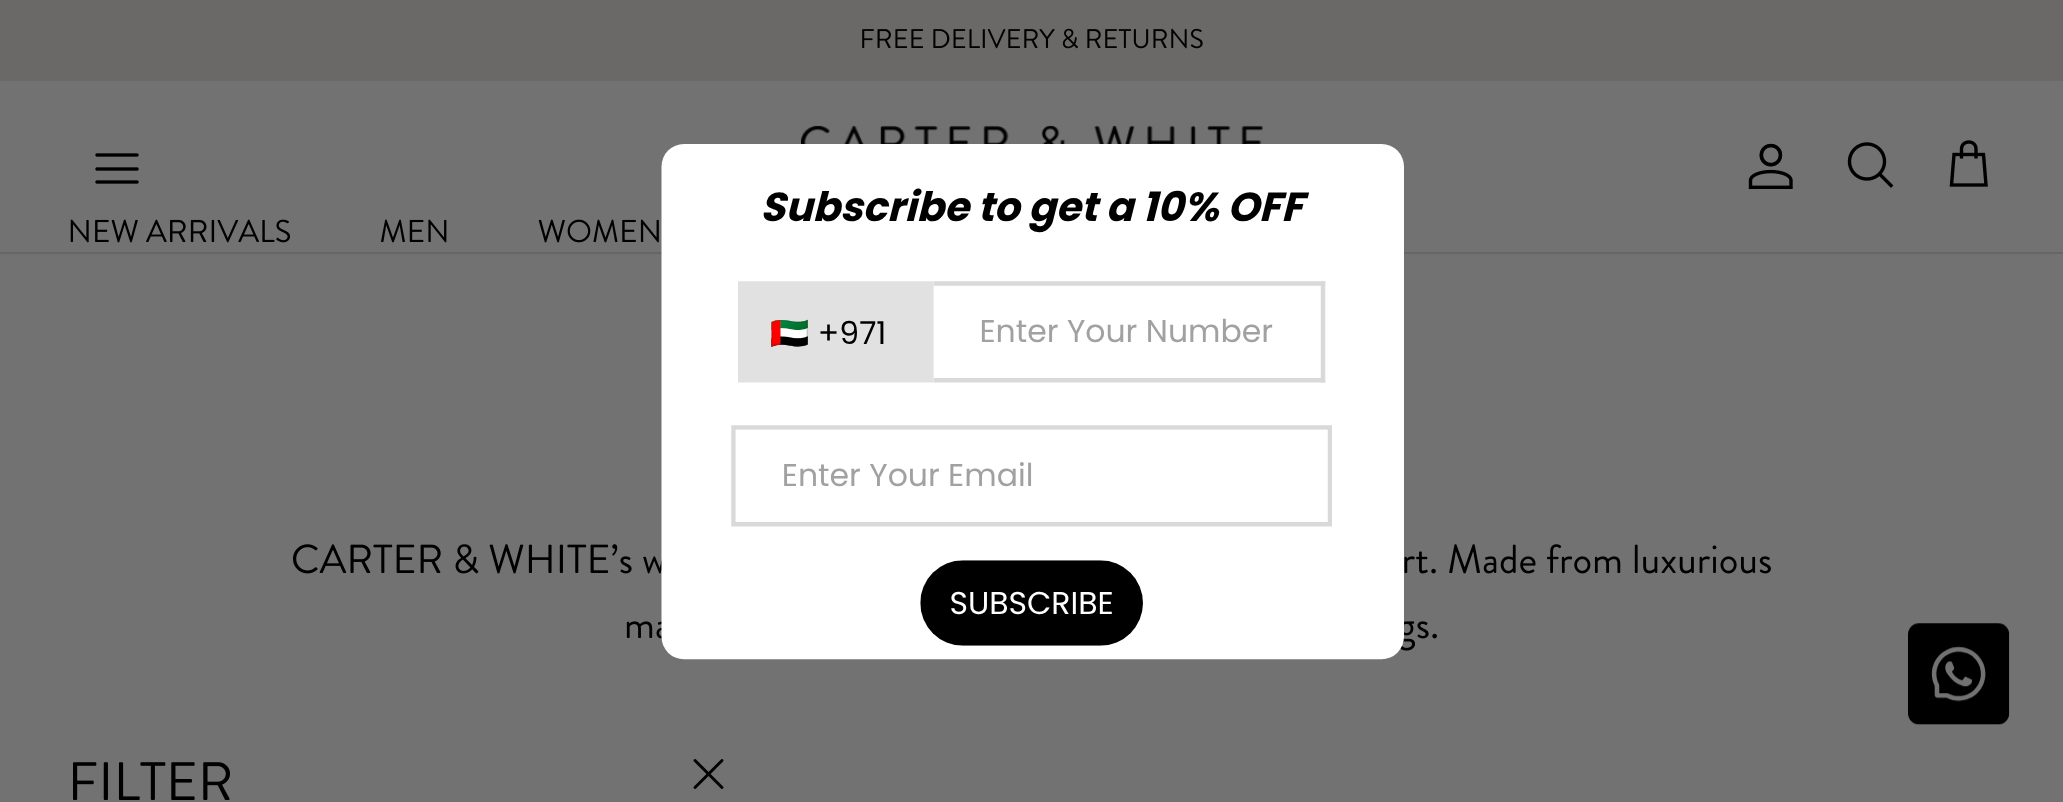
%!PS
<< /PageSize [2063 802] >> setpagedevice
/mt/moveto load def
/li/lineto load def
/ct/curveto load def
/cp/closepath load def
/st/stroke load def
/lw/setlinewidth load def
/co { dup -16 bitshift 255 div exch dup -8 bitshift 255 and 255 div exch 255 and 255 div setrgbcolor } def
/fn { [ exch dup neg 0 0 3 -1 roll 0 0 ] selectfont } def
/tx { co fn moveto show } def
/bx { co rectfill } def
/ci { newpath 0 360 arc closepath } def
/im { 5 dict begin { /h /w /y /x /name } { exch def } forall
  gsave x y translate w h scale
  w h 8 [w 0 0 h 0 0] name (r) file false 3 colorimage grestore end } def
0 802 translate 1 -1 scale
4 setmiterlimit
0 0 2063 802 16#808080 bx
0 0 2063 81 16#777573 bx
0 252 2063 2 16#707274 bx
(media/2.raw) 801 125 462 19 im
(media/3.raw) 1748 143 45 46 im
16#000000 co
3.4 lw
1867 161.5 17.5 ci st
2 setlinecap
1881 175.5 mt 1891 185.5 li st
0 setlinecap
1976 158.5 mt 1976 149 li 1976 145 1973 142 1969 142 ct 1964.5 142 1961.5 145 1961.5 149 ct 1961.5 158.5 li 1954 154.5 mt 1983.5 154.5 li 1986 185 li 1951.5 185 li cp st
1 setlinecap
1 setlinejoin
97 169 mt 137 169 li 97 155 mt 137 155 li 97 182 mt 137 182 li st
2.9 lw
722 760.5 mt 695 787.5 li 695 760.5 mt 722 787.5 li st
(media/4.raw) 1908 623 102 102 im
(FREE DELIVERY & RETURNS) 859 48 /BrandonGrotesque-Regular 27 16#000000 tx
(NEW ARRIVALS) 68 242 /BrandonGrotesque-Regular 31.5 16#000000 tx
(MEN) 379 242 /BrandonGrotesque-Regular 31.5 16#000000 tx
(WOMEN) 538 242 /BrandonGrotesque-Regular 31.5 16#000000 tx
(CARTER & WHITE’s w) 291 573 /BrandonGrotesque-Regular 40.5 16#000000 tx
(rt. Made from luxurious) 1402 573 /BrandonGrotesque-Regular 40.5 16#000000 tx
(m) 624 638 /BrandonGrotesque-Regular 40.5 16#000000 tx
(gs.) 1397 638 /BrandonGrotesque-Regular 40.5 16#000000 tx
(FILTER) 68 800 /BrandonGrotesque-Regular 54 16#000000 tx
(media/1.raw) 0 0 2063 802 im
showpage
